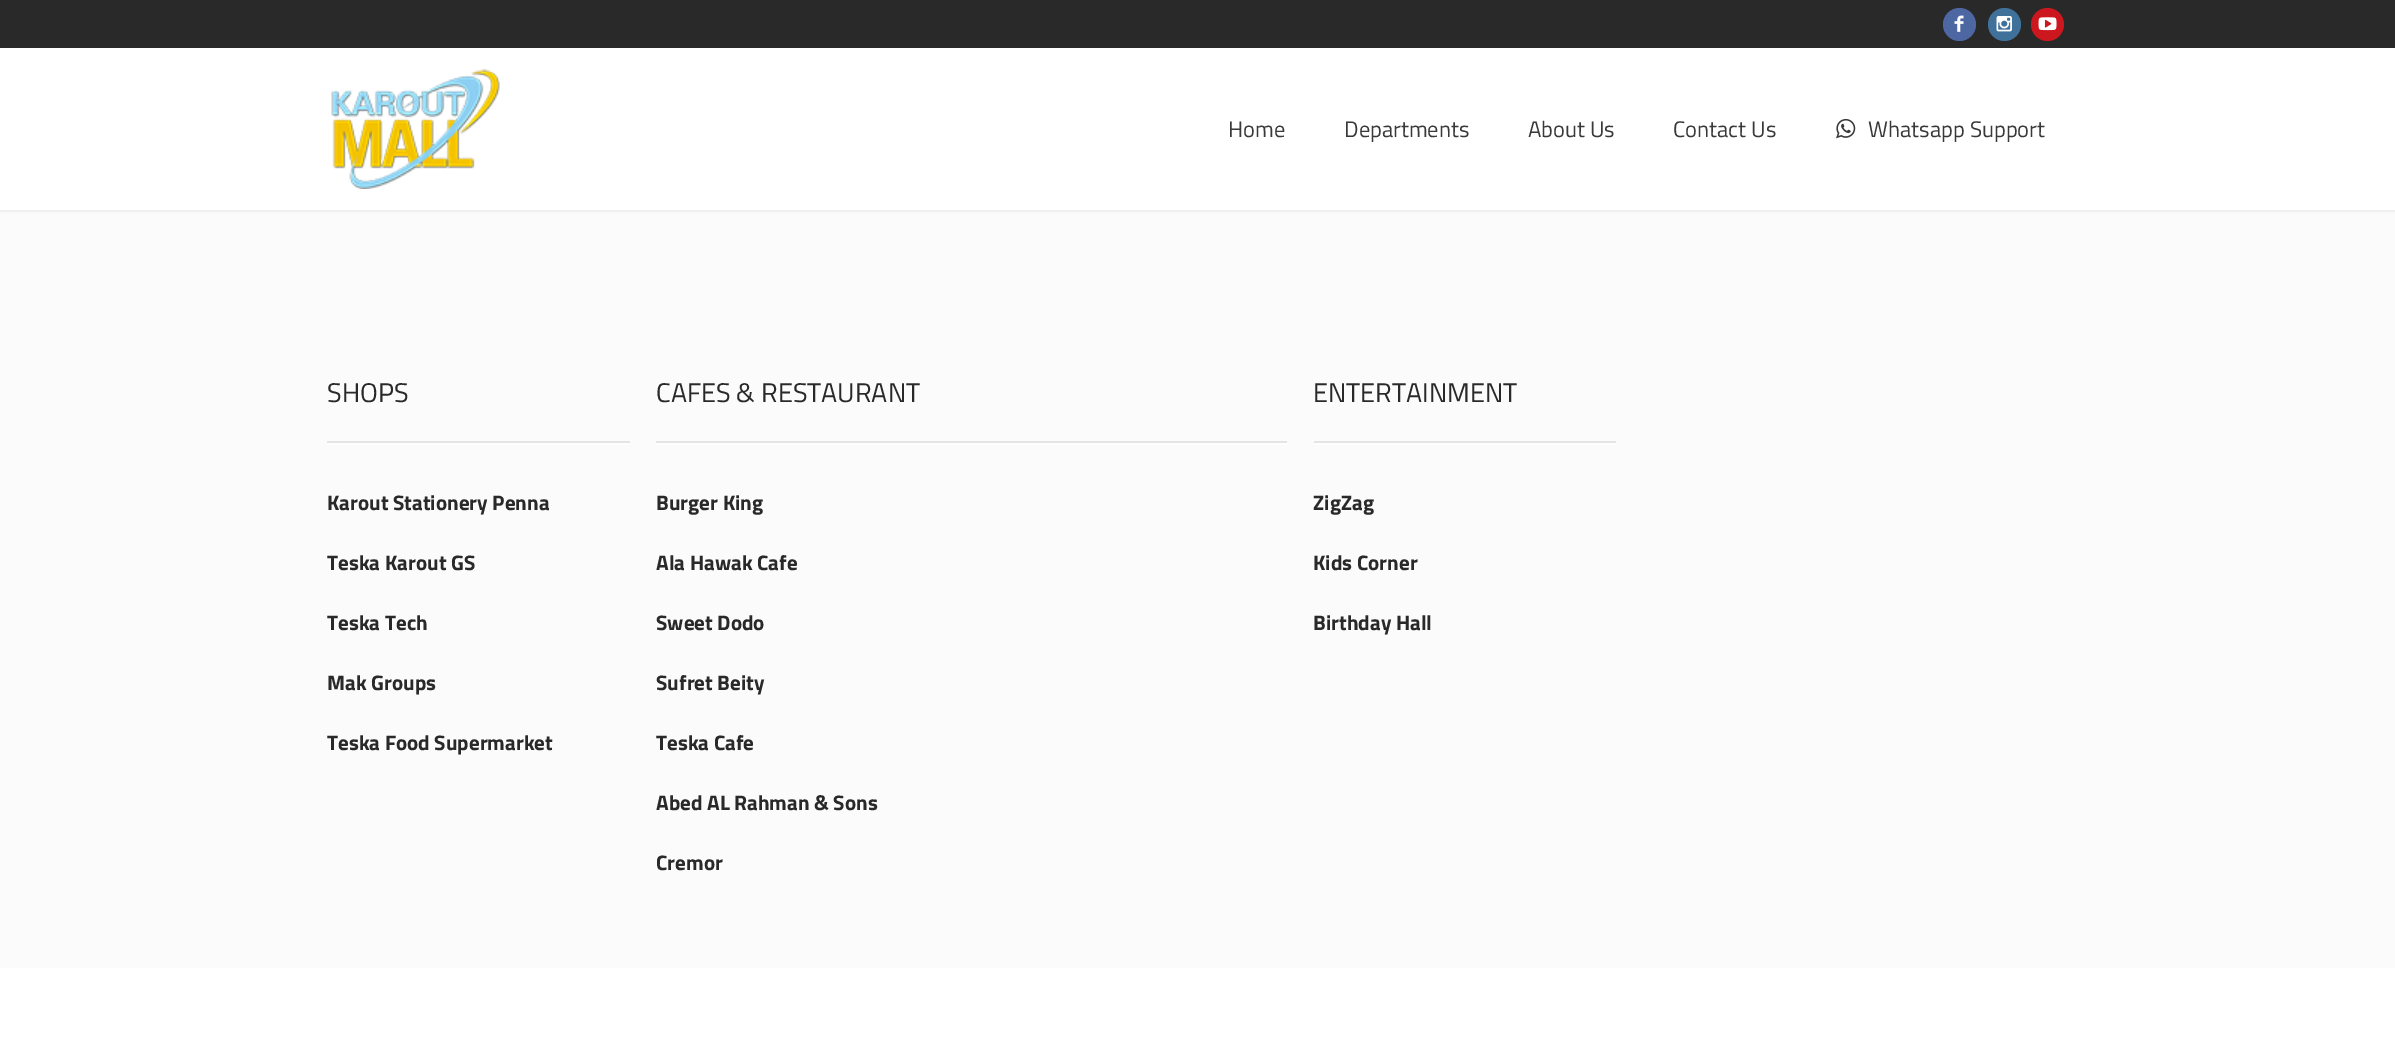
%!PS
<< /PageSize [2395 1037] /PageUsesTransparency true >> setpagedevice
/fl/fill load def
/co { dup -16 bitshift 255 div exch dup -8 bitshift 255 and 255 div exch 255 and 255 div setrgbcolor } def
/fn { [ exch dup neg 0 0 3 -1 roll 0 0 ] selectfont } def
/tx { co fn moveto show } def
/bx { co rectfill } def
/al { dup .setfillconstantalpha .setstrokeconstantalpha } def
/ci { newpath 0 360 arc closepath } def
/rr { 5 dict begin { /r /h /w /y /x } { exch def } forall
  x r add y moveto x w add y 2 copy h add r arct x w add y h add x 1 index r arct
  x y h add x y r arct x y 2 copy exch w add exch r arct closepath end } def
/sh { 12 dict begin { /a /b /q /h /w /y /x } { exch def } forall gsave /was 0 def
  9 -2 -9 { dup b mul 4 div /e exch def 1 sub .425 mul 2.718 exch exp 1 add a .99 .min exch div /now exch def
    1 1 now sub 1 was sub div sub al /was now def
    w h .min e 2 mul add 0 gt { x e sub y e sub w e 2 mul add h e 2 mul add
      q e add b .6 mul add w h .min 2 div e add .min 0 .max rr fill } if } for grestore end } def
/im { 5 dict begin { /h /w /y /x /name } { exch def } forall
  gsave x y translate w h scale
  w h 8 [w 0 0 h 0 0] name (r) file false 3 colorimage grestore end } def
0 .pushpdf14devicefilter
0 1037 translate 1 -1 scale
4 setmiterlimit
0 0 2395 1037 16#FBFBFB bx
16#000000 co
0 2 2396 210 0 1 .05 sh
0 0 2395 48 16#292929 bx
16#4D67A3 co
1959.5 24.5 16.5 ci fl
(media/1.raw) 1954 15 10 17 im
16#40719A co
2004.5 24.5 16.5 ci fl
(media/2.raw) 1996 16 16 16 im
16#CC171E co
2047.5 24.5 16.5 ci fl
(media/3.raw) 2038 17 19 14 im
0 48 2395 162 16#FFFFFF bx
(media/4.raw) 331 69 169 120 im
(media/5.raw) 1836 118 20 21 im
327 443 303 2 16#FEFEFE bx
327 441 303 2 16#E4E4E4 bx
656 443 631 2 16#FEFEFE bx
656 441 631 2 16#E4E4E4 bx
1314 443 302 2 16#FEFEFE bx
1314 441 302 2 16#E4E4E4 bx
0 968 2395 69 16#FFFFFF bx
(Home) 1228 137 /TitilliumWeb-Regular 22.5 16#393939 tx
(Departments) 1344 137 /TitilliumWeb-Regular 22.5 16#393939 tx
(About Us) 1528 137 /TitilliumWeb-Regular 22.5 16#393939 tx
(Contact Us) 1673 137 /TitilliumWeb-Regular 22.5 16#393939 tx
(Whatsapp Support) 1868 137 /TitilliumWeb-Regular 22.5 16#393939 tx
(SHOPS) 327 402 /TitilliumWeb-Regular 27 16#292929 tx
(Karout Stationery Penna) 327 510 /TitilliumWeb-Bold 21 16#292929 tx
(Teska Karout GS) 327 570 /TitilliumWeb-Bold 21 16#292929 tx
(Teska Tech) 327 630 /TitilliumWeb-Bold 21 16#292929 tx
(Mak Groups) 327 690 /TitilliumWeb-Bold 21 16#292929 tx
(Teska Food Supermarket) 327 750 /TitilliumWeb-Bold 21 16#292929 tx
(CAFES & RESTAURANT) 656 402 /TitilliumWeb-Regular 27 16#292929 tx
(Burger King) 656 510 /TitilliumWeb-Bold 21 16#292929 tx
(Ala Hawak Cafe) 656 570 /TitilliumWeb-Bold 21 16#292929 tx
(Sweet Dodo) 656 630 /TitilliumWeb-Bold 21 16#292929 tx
(Sufret Beity) 656 690 /TitilliumWeb-Bold 21 16#292929 tx
(Teska Cafe) 656 750 /TitilliumWeb-Bold 21 16#292929 tx
(Abed AL Rahman & Sons) 656 810 /TitilliumWeb-Bold 21 16#292929 tx
(Cremor) 656 870 /TitilliumWeb-Bold 21 16#292929 tx
(ENTERTAINMENT) 1313 402 /TitilliumWeb-Regular 27 16#292929 tx
(ZigZag) 1313 510 /TitilliumWeb-Bold 21 16#292929 tx
(Kids Corner) 1313 570 /TitilliumWeb-Bold 21 16#292929 tx
(Birthday Hall) 1313 630 /TitilliumWeb-Bold 21 16#292929 tx
.poppdf14devicefilter showpage
